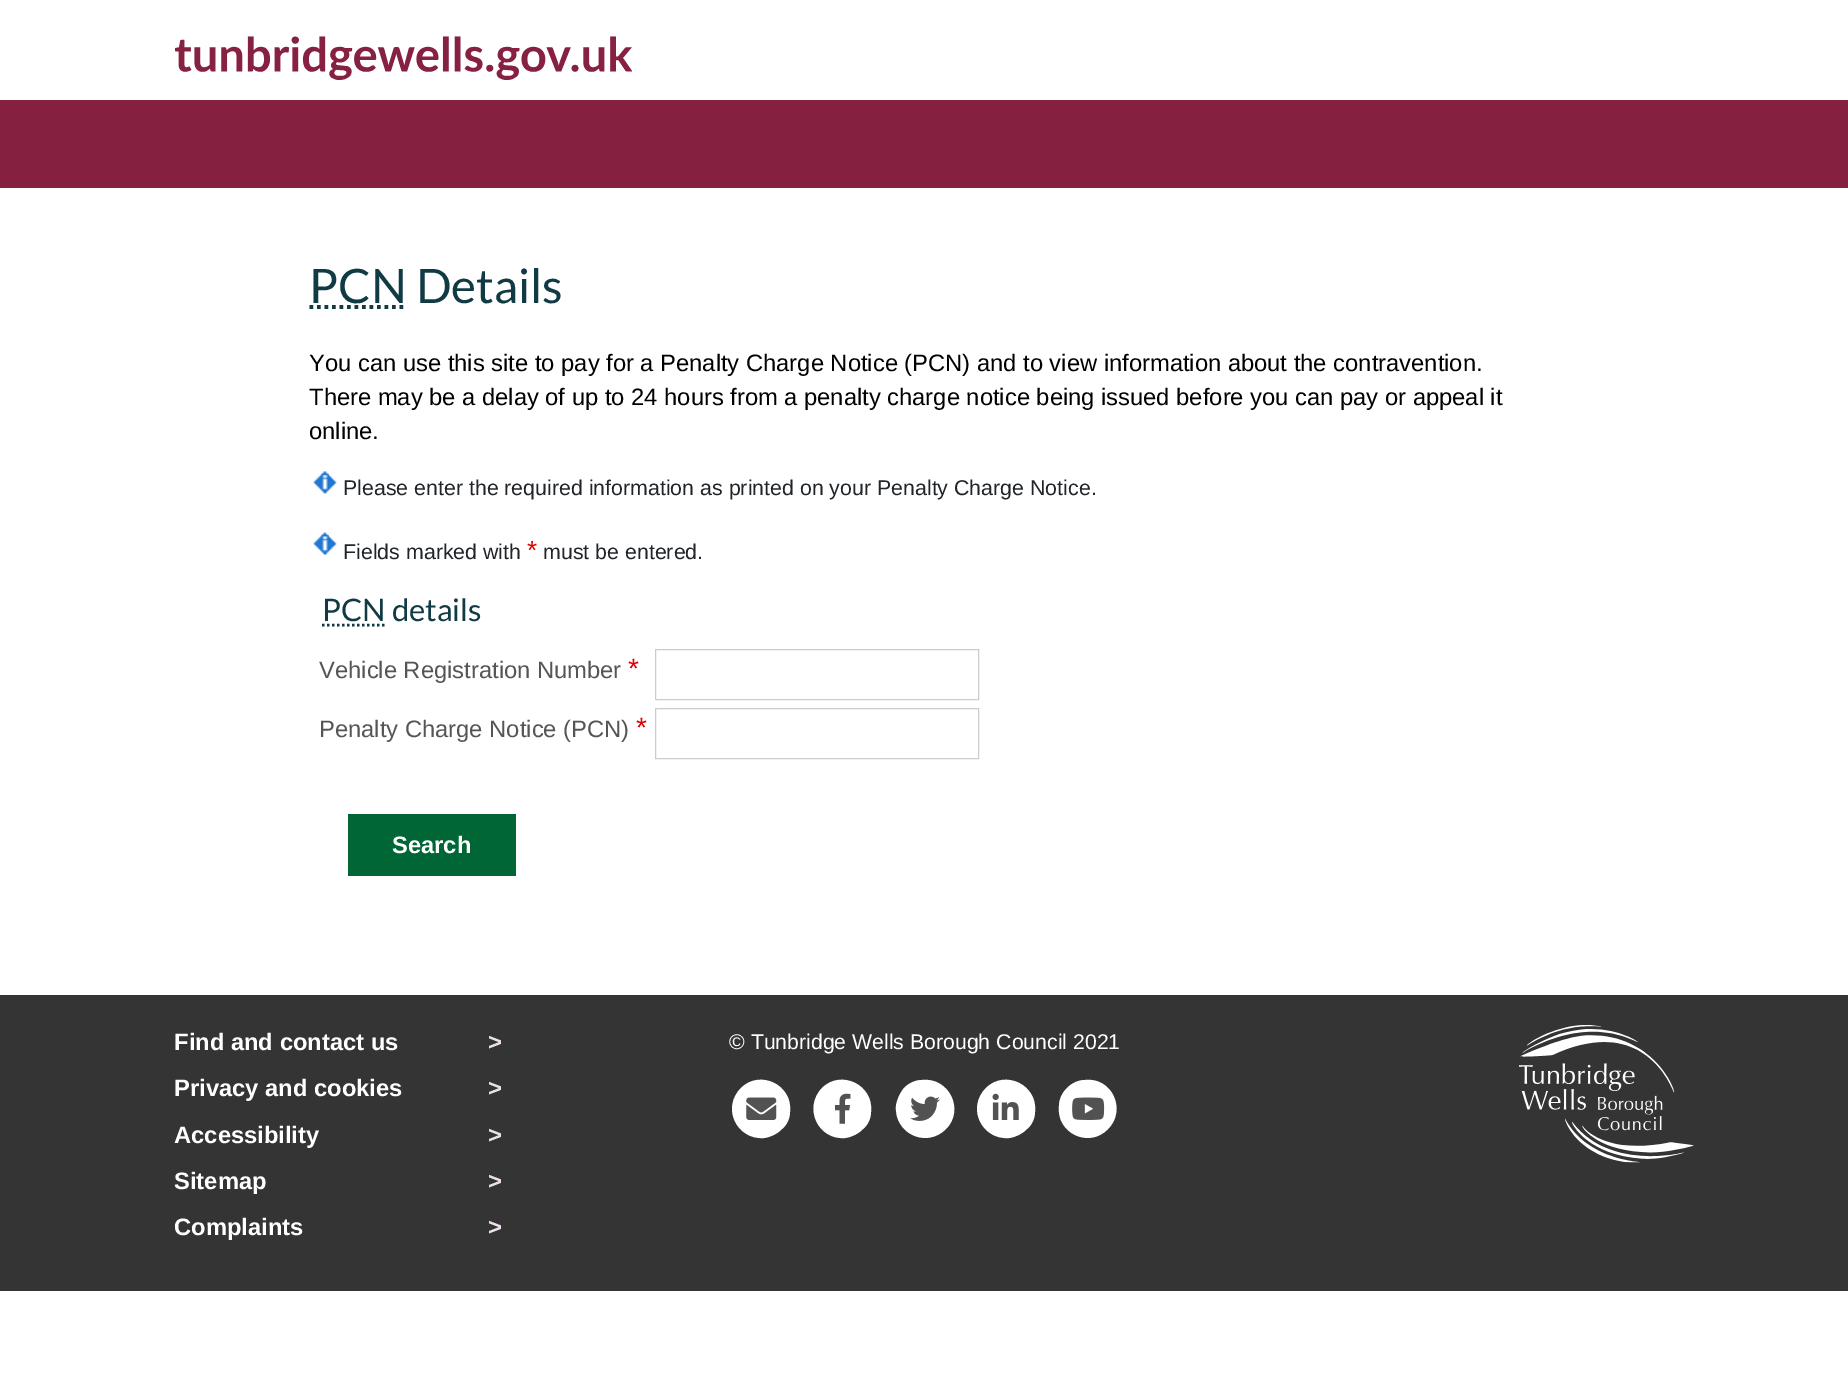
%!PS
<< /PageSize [1848 1387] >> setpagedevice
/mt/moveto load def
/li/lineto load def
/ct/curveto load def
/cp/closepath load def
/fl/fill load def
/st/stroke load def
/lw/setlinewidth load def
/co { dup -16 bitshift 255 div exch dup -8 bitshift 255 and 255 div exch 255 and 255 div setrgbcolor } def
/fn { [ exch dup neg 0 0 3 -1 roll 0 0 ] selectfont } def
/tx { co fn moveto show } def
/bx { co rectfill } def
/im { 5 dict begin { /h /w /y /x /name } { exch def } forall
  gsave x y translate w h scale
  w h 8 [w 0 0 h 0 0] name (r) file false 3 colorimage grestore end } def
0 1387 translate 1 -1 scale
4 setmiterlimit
0 0 1848 1387 16#FFFFFF bx
(media/1.raw) 175 36 458 44 im
0 100 1848 88 16#862041 bx
16#103A44 co
3.8 lw
[3.75 3.75] 0 setdash
309.5 307 mt 407 307 li st
(media/2.raw) 313 471 24 23 im
(media/3.raw) 313 532 24 23 im
2.5 lw
[2.5 2.5] 0 setdash
322 625 mt 385 625 li st
16#CCCCCC co
1 lw
[] 0 setdash
655.5 649.5 323 50 rectstroke
655.5 708.5 323 50 rectstroke
348 814 168 62 16#006636 bx
0 995 1848 296 16#343434 bx
16#FFFFFF co
741 1088 mt 760 1069 793 1085 790 1112 ct 790 1118 787 1125 782 1129 ct 777 1134 771 1137 764 1138 ct 737 1140 721 1108 741 1088 ct cp fl
(media/4.raw) 746 1097 31 23 im
822 1088 mt 841 1069 874 1085 871 1112 ct 871 1118 868 1125 863 1129 ct 858 1134 852 1137 845 1138 ct 818 1140 803 1108 822 1088 ct cp fl
(media/5.raw) 835 1093 16 31 im
904 1088 mt 909 1083 915 1080 922 1080 ct 949 1077 965 1110 946 1129 ct 926 1149 894 1133 896 1106 ct 897 1099 900 1093 904 1088 ct cp fl
(media/6.raw) 910 1096 30 25 im
986 1088 mt 1005 1069 1038 1085 1035 1112 ct 1035 1118 1032 1125 1027 1129 ct 1022 1134 1016 1137 1009 1138 ct 982 1140 966 1108 986 1088 ct cp fl
(media/7.raw) 992 1093 27 27 im
1067 1088 mt 1072 1083 1078 1080 1085 1080 ct 1112 1077 1127 1110 1108 1129 ct 1089 1149 1056 1133 1059 1106 ct 1059 1099 1062 1093 1067 1088 ct cp fl
(media/8.raw) 1072 1097 33 23 im
(media/9.raw) 1519 1025 175 138 im
(PCN Details) 309 303 /Lato-Regular 47.5 16#103A44 tx
(You can use this site to pay for a Penalty Charge Notice \(PCN\) and to view information about the contravention.) 309 371 /LiberationSans-Regular 23.75 16#000000 tx
(There may be a delay of up to 24 hours from a penalty charge notice being issued before you can pay or appeal it) 309 405 /LiberationSans-Regular 23.75 16#000000 tx
(online.) 309 439 /LiberationSans-Regular 23.75 16#000000 tx
(Please enter the required information as printed on your Penalty Charge Notice.) 343 495 /LiberationSans-Regular 21.35 16#212529 tx
(Fields marked with) 343 559 /LiberationSans-Regular 21.35 16#212529 tx
(*) 527 559 /LiberationSans-Regular 26 16#DF0000 tx
(must be entered.) 543 559 /LiberationSans-Regular 21.35 16#212529 tx
(PCN details) 322 621 /Lato-Regular 31 16#103A44 tx
(Vehicle Registration Number) 319 678 /LiberationSans-Regular 23.75 16#555555 tx
(*) 628 678 /LiberationSans-Regular 28 16#DF0000 tx
(Penalty Charge Notice \(PCN\)) 319 737 /LiberationSans-Regular 23.75 16#555555 tx
(*) 636 737 /LiberationSans-Regular 28 16#DF0000 tx
(Search) 392 853 /LiberationSans-Bold 23.75 16#FFFFFF tx
(Find and contact us) 174 1050 /LiberationSans-Bold 23.75 16#FFFFFF tx
(>) 488 1050 /LiberationSans-Bold 23.75 16#ECE0ED tx
(Privacy and cookies) 174 1096 /LiberationSans-Bold 23.75 16#FFFFFF tx
(>) 488 1096 /LiberationSans-Bold 23.75 16#ECE0ED tx
(Accessibility) 174 1143 /LiberationSans-Bold 23.75 16#FFFFFF tx
(>) 488 1143 /LiberationSans-Bold 23.75 16#ECE0ED tx
(Sitemap) 174 1189 /LiberationSans-Bold 23.75 16#FFFFFF tx
(>) 488 1189 /LiberationSans-Bold 23.75 16#ECE0ED tx
(Complaints) 174 1235 /LiberationSans-Bold 23.75 16#FFFFFF tx
(>) 488 1235 /LiberationSans-Bold 23.75 16#ECE0ED tx
(© Tunbridge Wells Borough Council 2021) 729 1049 /LiberationSans-Regular 21.25 16#FFFFFF tx
showpage
